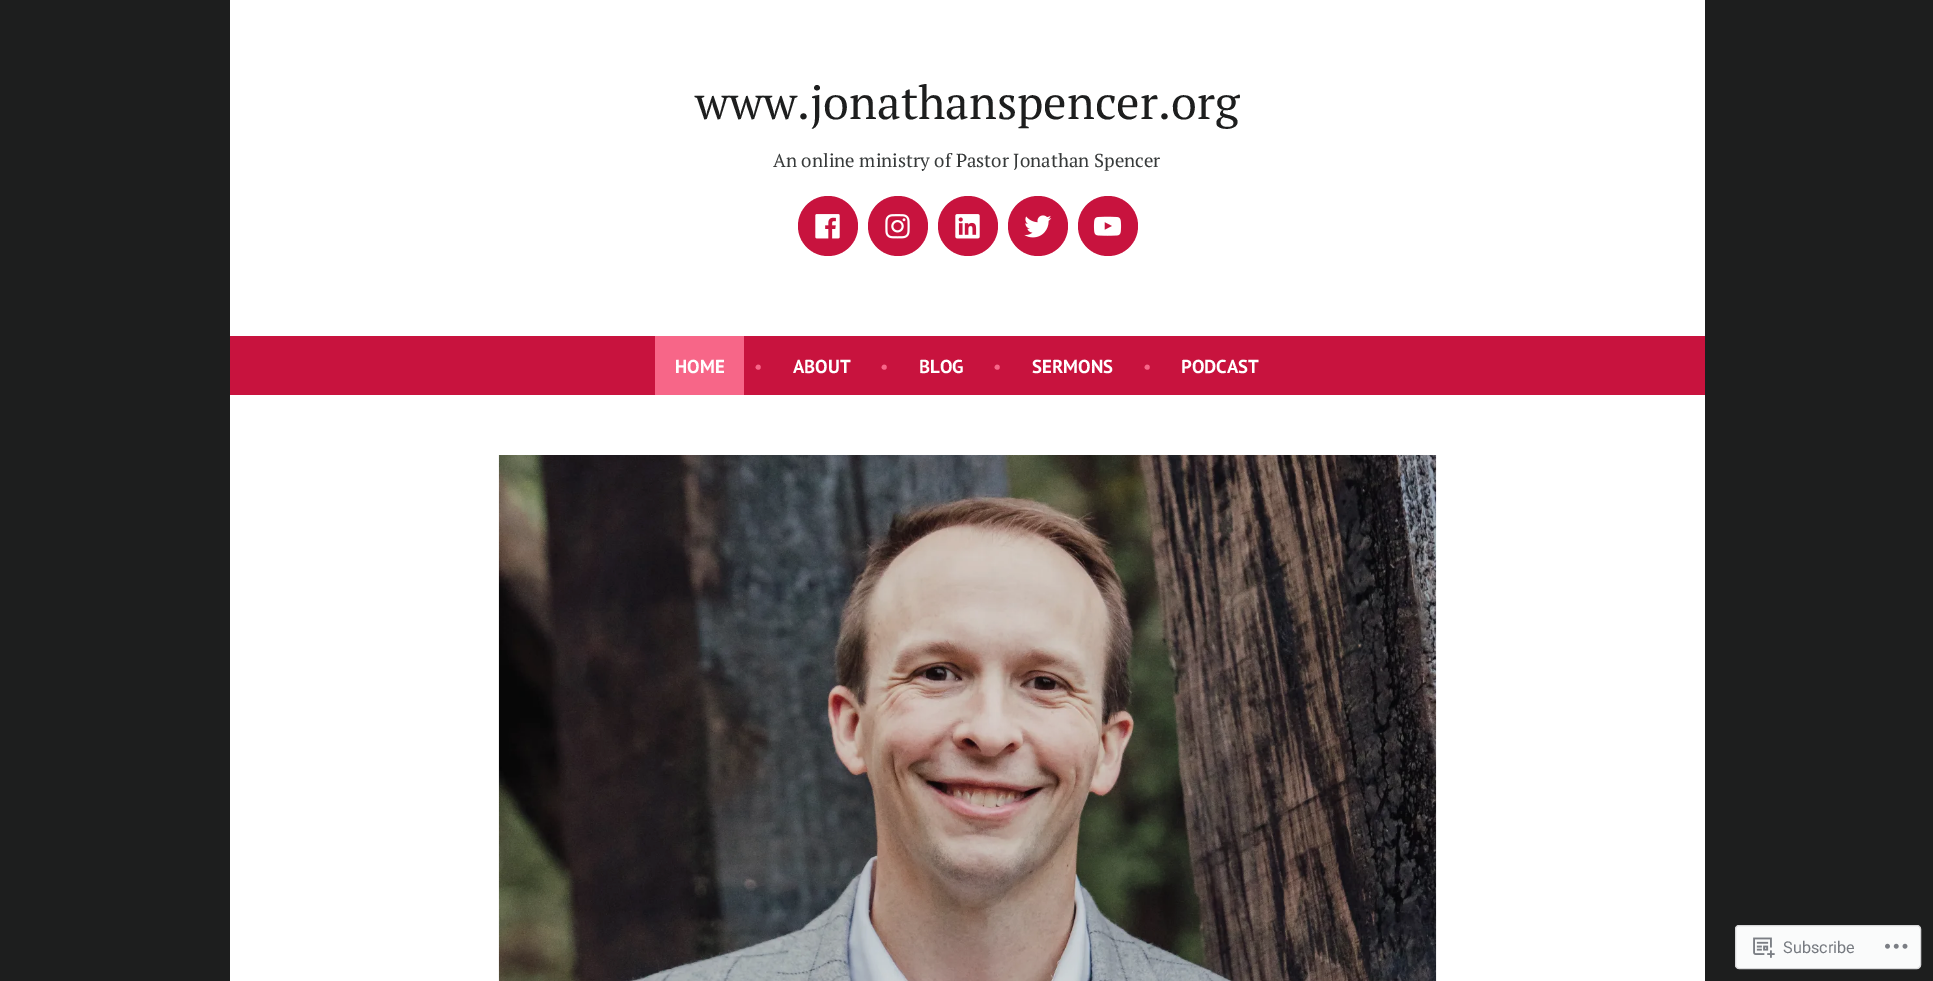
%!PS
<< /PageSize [1933 981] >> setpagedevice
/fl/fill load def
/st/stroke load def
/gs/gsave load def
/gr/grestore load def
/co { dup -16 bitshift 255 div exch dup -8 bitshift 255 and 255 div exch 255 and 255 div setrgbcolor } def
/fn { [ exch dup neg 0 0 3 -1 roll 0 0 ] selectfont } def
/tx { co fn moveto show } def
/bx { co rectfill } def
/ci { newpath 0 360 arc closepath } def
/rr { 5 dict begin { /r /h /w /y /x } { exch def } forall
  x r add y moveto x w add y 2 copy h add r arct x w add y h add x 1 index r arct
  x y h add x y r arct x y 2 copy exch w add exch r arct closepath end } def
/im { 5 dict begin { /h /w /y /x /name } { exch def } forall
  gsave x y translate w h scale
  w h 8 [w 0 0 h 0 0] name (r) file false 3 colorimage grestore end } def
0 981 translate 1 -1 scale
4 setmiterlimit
0 0 1933 981 16#1D1E1E bx
230 0 1475 981 16#FFFFFF bx
16#C8133E co
828 226 30 ci fl
(media/1.raw) 815 214 25 25 im
898 226 30 ci fl
(media/2.raw) 885 214 25 25 im
968 226 30 ci fl
(media/3.raw) 955 214 25 25 im
1038 226 30 ci fl
(media/4.raw) 1024 215 28 23 im
1108 226 30 ci fl
(media/5.raw) 1093 216 29 20 im
230 336 1475 59 16#C8133E bx
655 336 89 59 16#F76688 bx
(media/6.raw) 498 455 939 526 im
16#FAFBFB co
1735.5 925.5 185 43 3.5 rr gs fl gr
16#D8D8DA co
st
(media/7.raw) 1753 937 22 21 im
(media/8.raw) 1885 943 23 6 im
(www.jonathanspencer.org) 695 119 /PTSerif-Regular 46.7 16#1D1E1E tx
(An online ministry of Pastor Jonathan Spencer) 773 167 /PTSerif-Regular 18.75 16#363939 tx
(HOME) 675 373 /PTSans-Bold 18.75 16#FFFFFF tx
(•) 754 373 /PTSans-Regular 18.75 16#F76688 tx
(ABOUT) 793 373 /PTSans-Bold 18.75 16#FFFFFF tx
(•) 880 373 /PTSans-Regular 18.75 16#F76688 tx
(BLOG) 919 373 /PTSans-Bold 18.75 16#FFFFFF tx
(•) 993 373 /PTSans-Regular 18.75 16#F76688 tx
(SERMONS) 1032 373 /PTSans-Bold 18.75 16#FFFFFF tx
(•) 1143 373 /PTSans-Regular 18.75 16#F76688 tx
(PODCAST) 1181 373 /PTSans-Bold 18.75 16#FFFFFF tx
(Subscribe) 1783 953 /Roboto-Regular 16.25 16#767A80 tx
showpage
